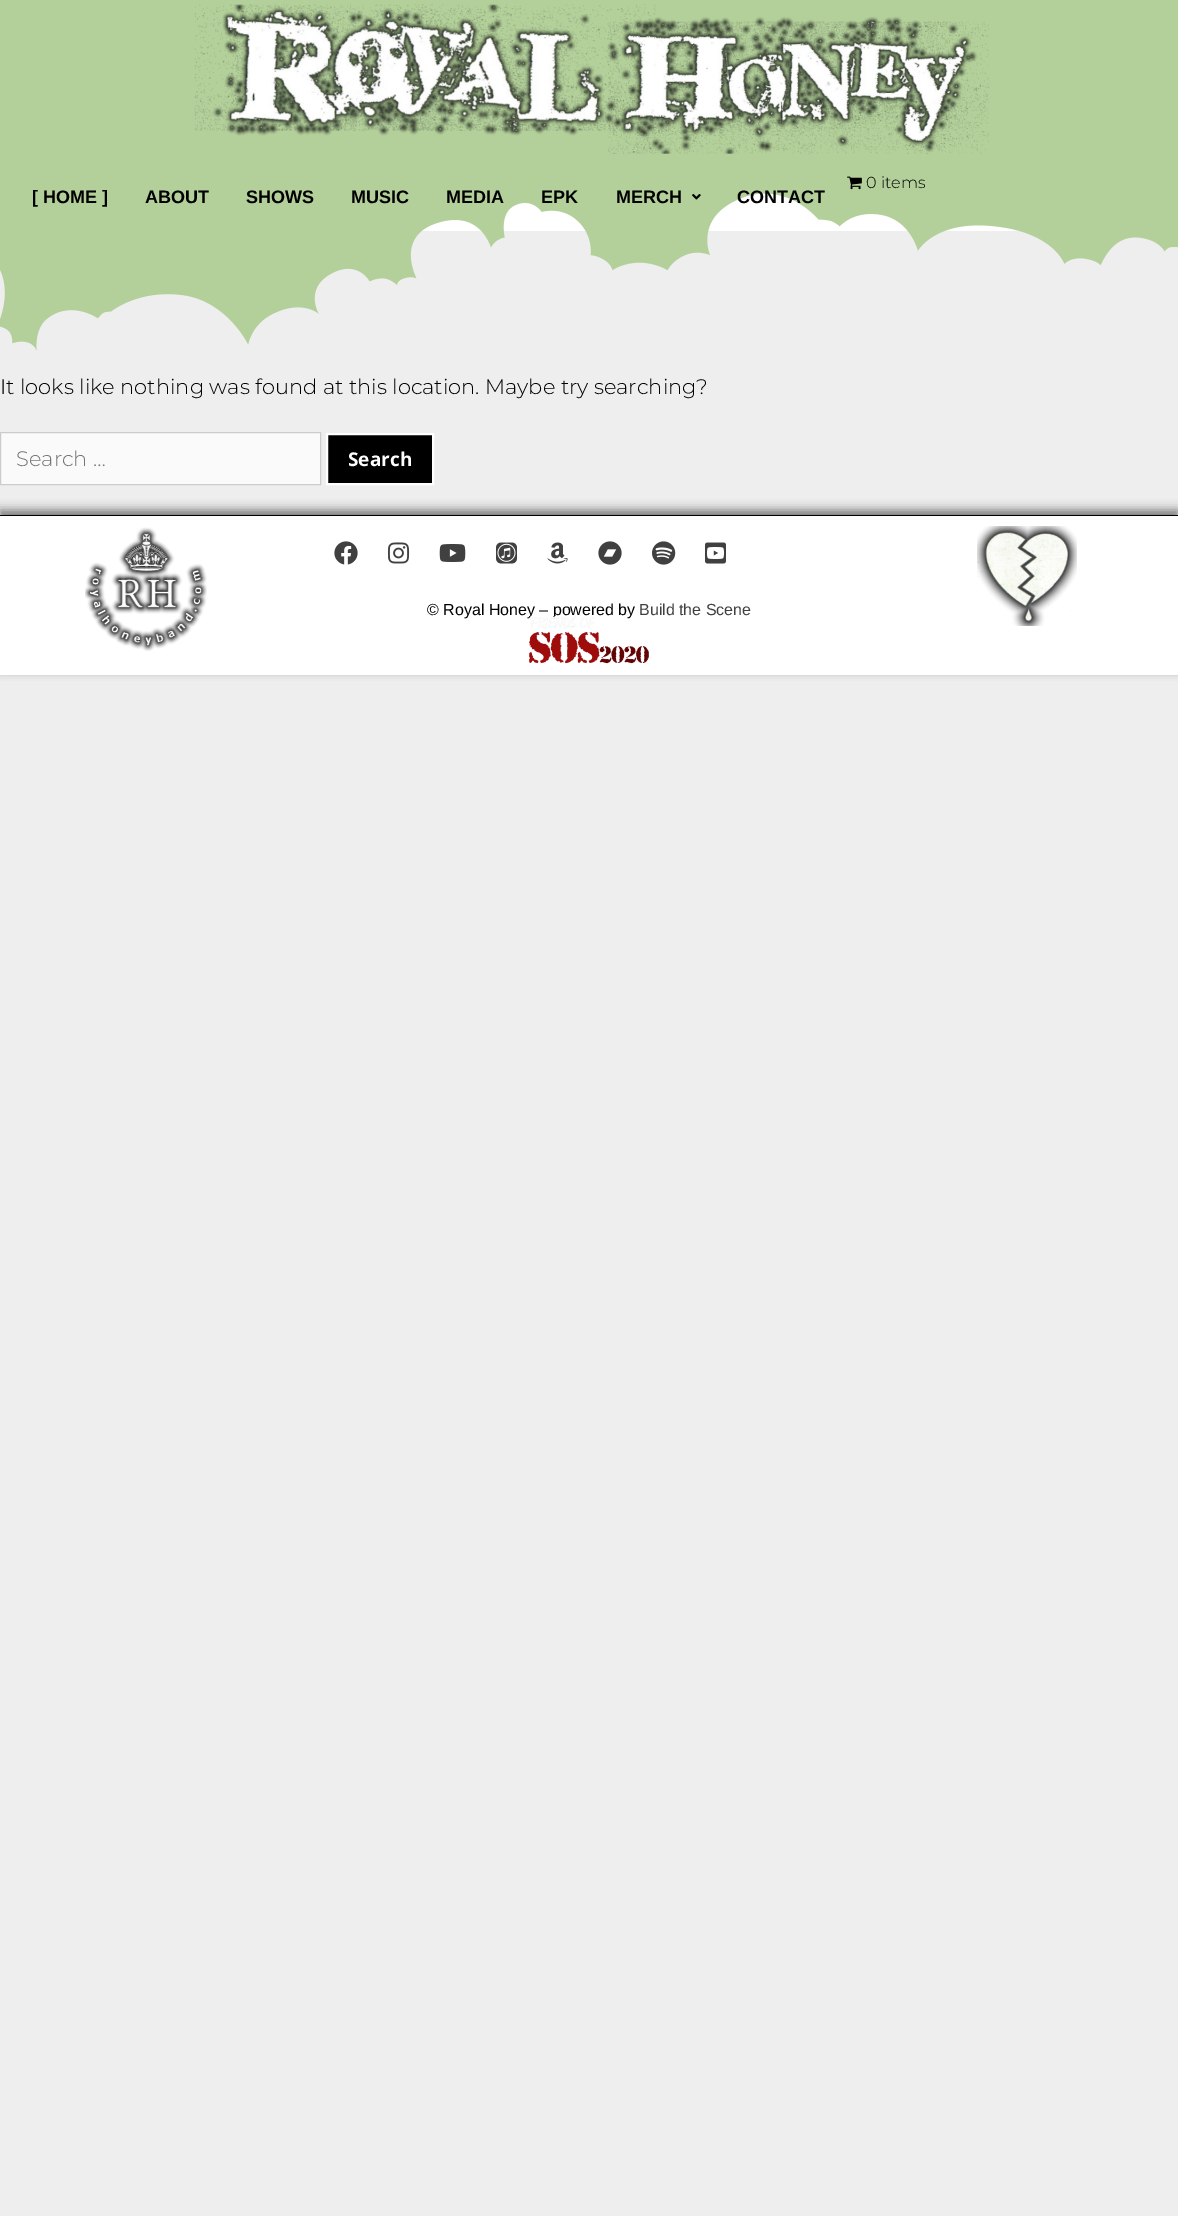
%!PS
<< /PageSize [1178 2216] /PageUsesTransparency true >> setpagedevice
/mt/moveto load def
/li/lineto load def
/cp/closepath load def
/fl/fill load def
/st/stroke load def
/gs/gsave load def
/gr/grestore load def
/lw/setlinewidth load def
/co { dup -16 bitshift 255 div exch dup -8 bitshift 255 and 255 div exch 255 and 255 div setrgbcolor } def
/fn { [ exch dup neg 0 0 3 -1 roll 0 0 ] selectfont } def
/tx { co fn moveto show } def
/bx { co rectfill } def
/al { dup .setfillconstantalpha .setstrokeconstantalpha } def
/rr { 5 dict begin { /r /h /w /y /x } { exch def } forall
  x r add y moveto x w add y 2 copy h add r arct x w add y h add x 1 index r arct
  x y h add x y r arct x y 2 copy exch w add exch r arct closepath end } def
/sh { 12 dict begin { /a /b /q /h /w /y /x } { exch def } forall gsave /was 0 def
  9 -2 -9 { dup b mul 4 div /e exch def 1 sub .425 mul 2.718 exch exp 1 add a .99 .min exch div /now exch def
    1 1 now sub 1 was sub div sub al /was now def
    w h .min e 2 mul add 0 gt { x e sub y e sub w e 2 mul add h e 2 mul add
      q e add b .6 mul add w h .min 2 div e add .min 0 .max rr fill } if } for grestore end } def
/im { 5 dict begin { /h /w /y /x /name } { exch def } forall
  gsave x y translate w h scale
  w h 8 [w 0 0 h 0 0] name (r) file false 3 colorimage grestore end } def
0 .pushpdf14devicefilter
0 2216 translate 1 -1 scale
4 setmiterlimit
0 0 1178 2216 16#EEEEEE bx
0 0 1178 193 16#B3D09A bx
(media/1.raw) 194 4 795 150 im
421 193 598 38 16#FFFFFF bx
(media/2.raw) 847 176 15 14 im
(media/4.raw) 0 193 1178 158 im
(media/3.raw) 692 194 9 6 im
16#FAFAFA co
.5 432.5 mt 320.5 432.5 li 320.5 484.5 li .5 484.5 li cp gs fl gr
16#CCCCCC co
st
16#000000 co
327 434 mt 433 434 li 433 484 li 327 484 li cp gs fl gr
16#FFFFFF co
2 lw
st
16#000000 co
0 510 1178 160 0 5 .5 sh
0 516 1178 159 16#FFFFFF bx
0 515 1178 1 16#000000 bx
(media/5.raw) 85 527 122 124 im
(media/6.raw) 334 541 24 24 im
(media/7.raw) 388 542 22 22 im
(media/8.raw) 439 544 27 18 im
(media/9.raw) 496 542 21 22 im
(media/10.raw) 547 542 21 22 im
(media/11.raw) 598 541 24 24 im
(media/12.raw) 652 541 24 24 im
(media/13.raw) 705 542 21 22 im
(media/15.raw) 977 526 100 100 im
(0 items) 866 188 /Montserrat-Light 16 16#000000 tx
([ HOME ]) 32 203 /LiberationSans-Bold 18 16#000000 tx
(ABOUT) 145 203 /LiberationSans-Bold 18 16#000000 tx
(SHOWS) 246 203 /LiberationSans-Bold 18 16#000000 tx
(MUSIC) 351 203 /LiberationSans-Bold 18 16#000000 tx
(MEDIA) 446 203 /LiberationSans-Bold 18 16#000000 tx
(EPK) 541 203 /LiberationSans-Bold 18 16#000000 tx
(MERCH) 616 203 /LiberationSans-Bold 18 16#000000 tx
(CONTACT) 737 203 /LiberationSans-Bold 18 16#000000 tx
(It looks like nothing was found at this location. Maybe try searching?) 0 394 /Montserrat-Light 21 16#000000 tx
(Search …) 16 466 /Montserrat-Light 21 16#757575 tx
(Search) 348 466 /OpenSans-Bold 19 16#FFFFFF tx
(© Royal Honey – powered by) 427 615 /LiberationSans-Regular 16 16#000000 tx
(Build the Scene) 639 615 /LiberationSans-Regular 16 16#404040 tx
(media/14.raw) 529 616 120 48 im
.poppdf14devicefilter showpage
